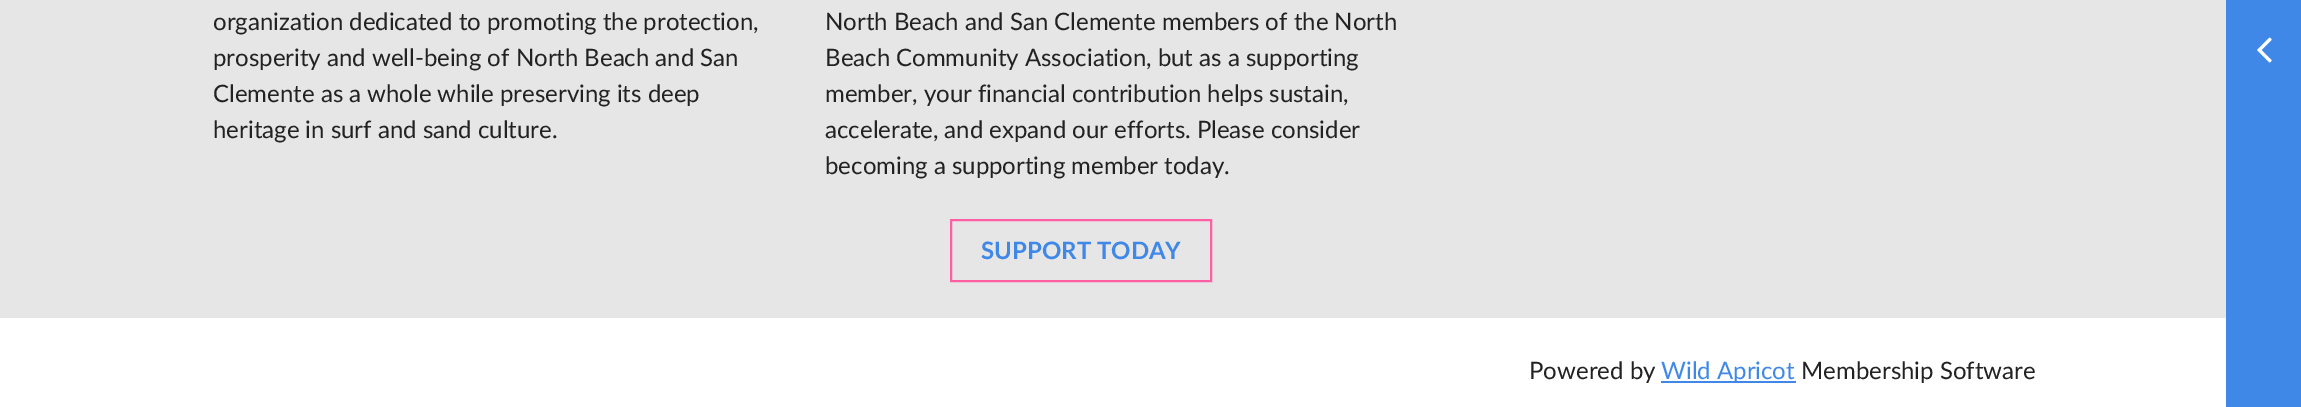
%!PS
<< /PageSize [2301 407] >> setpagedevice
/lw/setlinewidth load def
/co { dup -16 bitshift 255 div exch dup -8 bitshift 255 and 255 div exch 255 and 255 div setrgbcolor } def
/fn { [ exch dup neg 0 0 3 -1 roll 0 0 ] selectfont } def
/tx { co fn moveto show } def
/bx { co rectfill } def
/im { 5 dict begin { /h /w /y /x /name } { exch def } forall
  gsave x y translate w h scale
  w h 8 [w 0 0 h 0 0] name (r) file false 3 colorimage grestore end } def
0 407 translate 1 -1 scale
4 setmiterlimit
0 0 2301 407 16#FFFFFF bx
0 0 2226 318 16#E6E6E6 bx
16#FF60A4 co
2 lw
951 220 260 61 rectstroke
1661 381 135 2 16#3F88E8 bx
2226 0 75 407 16#3F88E8 bx
(media/1.raw) 2257 37 15 26 im
(organization dedicated to promoting the protection,) 213 30 /Lato-Regular 24 16#222222 tx
(prosperity and well-being of North Beach and San) 213 66 /Lato-Regular 24 16#222222 tx
(Clemente as a whole while preserving its deep) 213 102 /Lato-Regular 24 16#222222 tx
(heritage in surf and sand culture.) 213 138 /Lato-Regular 24 16#222222 tx
(North Beach and San Clemente members of the North) 825 30 /Lato-Regular 24 16#222222 tx
(Beach Community Association, but as a supporting) 825 66 /Lato-Regular 24 16#222222 tx
(member, your financial contribution helps sustain,) 825 102 /Lato-Regular 24 16#222222 tx
(accelerate, and expand our efforts. Please consider) 825 138 /Lato-Regular 24 16#222222 tx
(becoming a supporting member today.) 825 174 /Lato-Regular 24 16#222222 tx
(SUPPORT TODAY) 981 259 /Lato-Bold 24 16#3F88E8 tx
(Powered by) 1529 379 /Lato-Regular 24 16#222222 tx
(Wild Apricot) 1661 379 /Lato-Regular 24 16#3F88E8 tx
(Membership Software) 1801 379 /Lato-Regular 24 16#222222 tx
showpage
